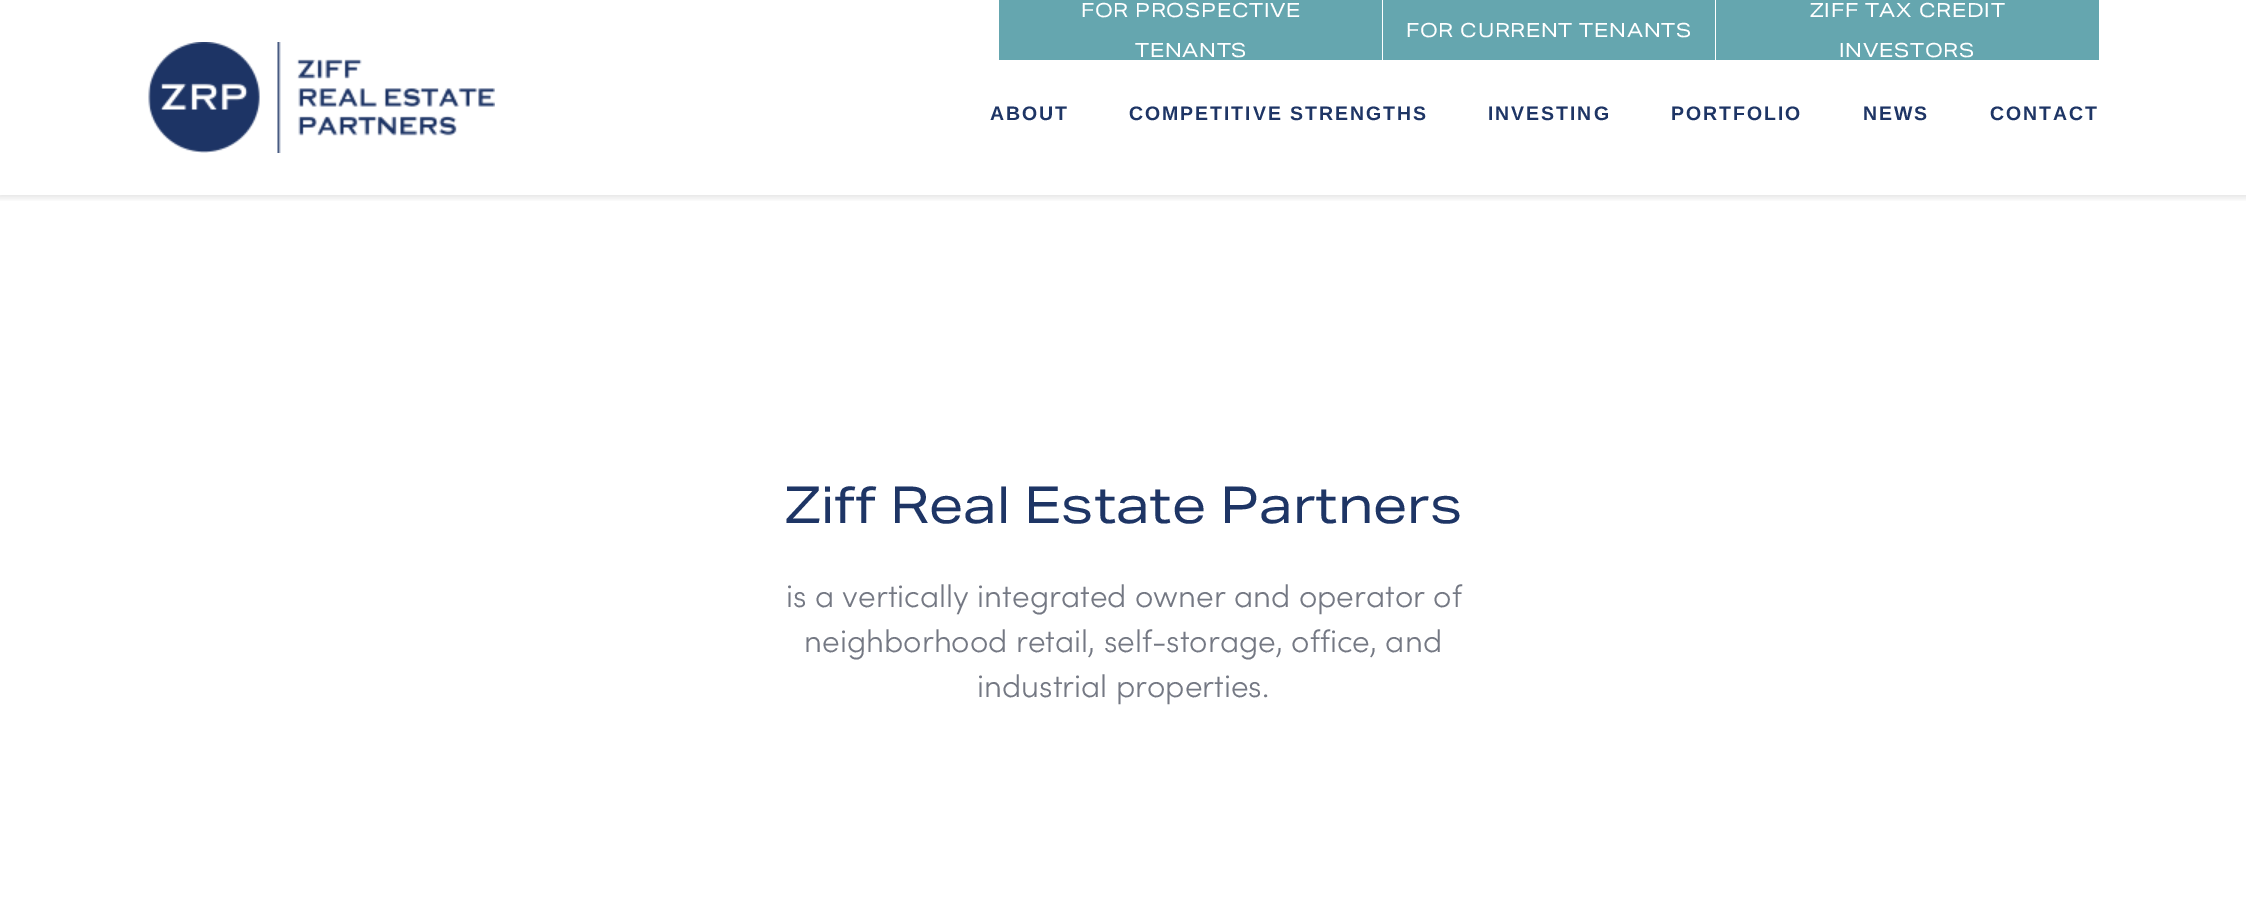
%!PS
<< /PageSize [2246 911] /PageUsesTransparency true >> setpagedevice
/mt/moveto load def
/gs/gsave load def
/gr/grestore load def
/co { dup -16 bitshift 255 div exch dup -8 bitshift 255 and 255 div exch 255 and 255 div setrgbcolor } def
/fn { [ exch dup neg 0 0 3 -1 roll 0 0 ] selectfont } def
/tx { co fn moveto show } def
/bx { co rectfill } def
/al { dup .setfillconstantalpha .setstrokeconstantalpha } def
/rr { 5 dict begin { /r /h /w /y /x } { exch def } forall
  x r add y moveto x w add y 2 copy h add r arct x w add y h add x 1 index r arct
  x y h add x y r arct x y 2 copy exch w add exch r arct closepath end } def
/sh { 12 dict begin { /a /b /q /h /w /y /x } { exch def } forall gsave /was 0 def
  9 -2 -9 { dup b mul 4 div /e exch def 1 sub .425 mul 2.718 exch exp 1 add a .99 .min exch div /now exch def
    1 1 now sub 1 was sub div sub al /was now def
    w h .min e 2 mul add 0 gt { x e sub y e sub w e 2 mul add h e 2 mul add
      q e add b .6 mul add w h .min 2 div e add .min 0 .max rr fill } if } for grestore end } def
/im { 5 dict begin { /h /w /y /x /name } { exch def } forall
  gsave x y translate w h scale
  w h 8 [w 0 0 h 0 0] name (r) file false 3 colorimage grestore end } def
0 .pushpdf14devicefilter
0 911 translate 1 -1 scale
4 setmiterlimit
0 0 2246 911 16#FFFFFF bx
gs
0 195 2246 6 rectclip
16#000000 co
-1 0 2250 198 0 3 .1 sh
gr
999 0 383 60 16#65A6AF bx
1383 0 332 60 16#65A6AF bx
1716 0 383 60 16#65A6AF bx
(media/1.raw) 148 42 347 111 im
/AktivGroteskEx-Regular 19.5 fn
16#FFFFFF co
1081 17 mt .75 0 (FOR PROSPECTIVE) ashow
1135 57 mt .75 0 (TENANTS) ashow
1406 37 mt .75 0 (FOR CURRENT TENANTS) ashow
1810 17 mt .75 0 (ZIFF TAX CREDIT) ashow
1839 57 mt .75 0 (INVESTORS) ashow
/LiberationSans-Bold 19.5 fn
16#1E3565 co
990 120 mt 1.95 0 (ABOUT) ashow
1129 120 mt 1.95 0 (COMPETITIVE STRENGTHS) ashow
1488 120 mt 1.95 0 (INVESTING) ashow
1671 120 mt 1.95 0 (PORTFOLIO) ashow
1863 120 mt 1.95 0 (NEWS) ashow
1990 120 mt 1.95 0 (CONTACT) ashow
(Ziff Real Estate Partners) 785 523 /AktivGroteskEx-Regular 51 16#1E3565 tx
(is a vertically integrated owner and operator of) 786 607 /Sofia-Light 31.5 16#747883 tx
(neighborhood retail, self-storage, office, and) 804 652 /Sofia-Light 31.5 16#747883 tx
(industrial properties.) 977 697 /Sofia-Light 31.5 16#747883 tx
.poppdf14devicefilter showpage
